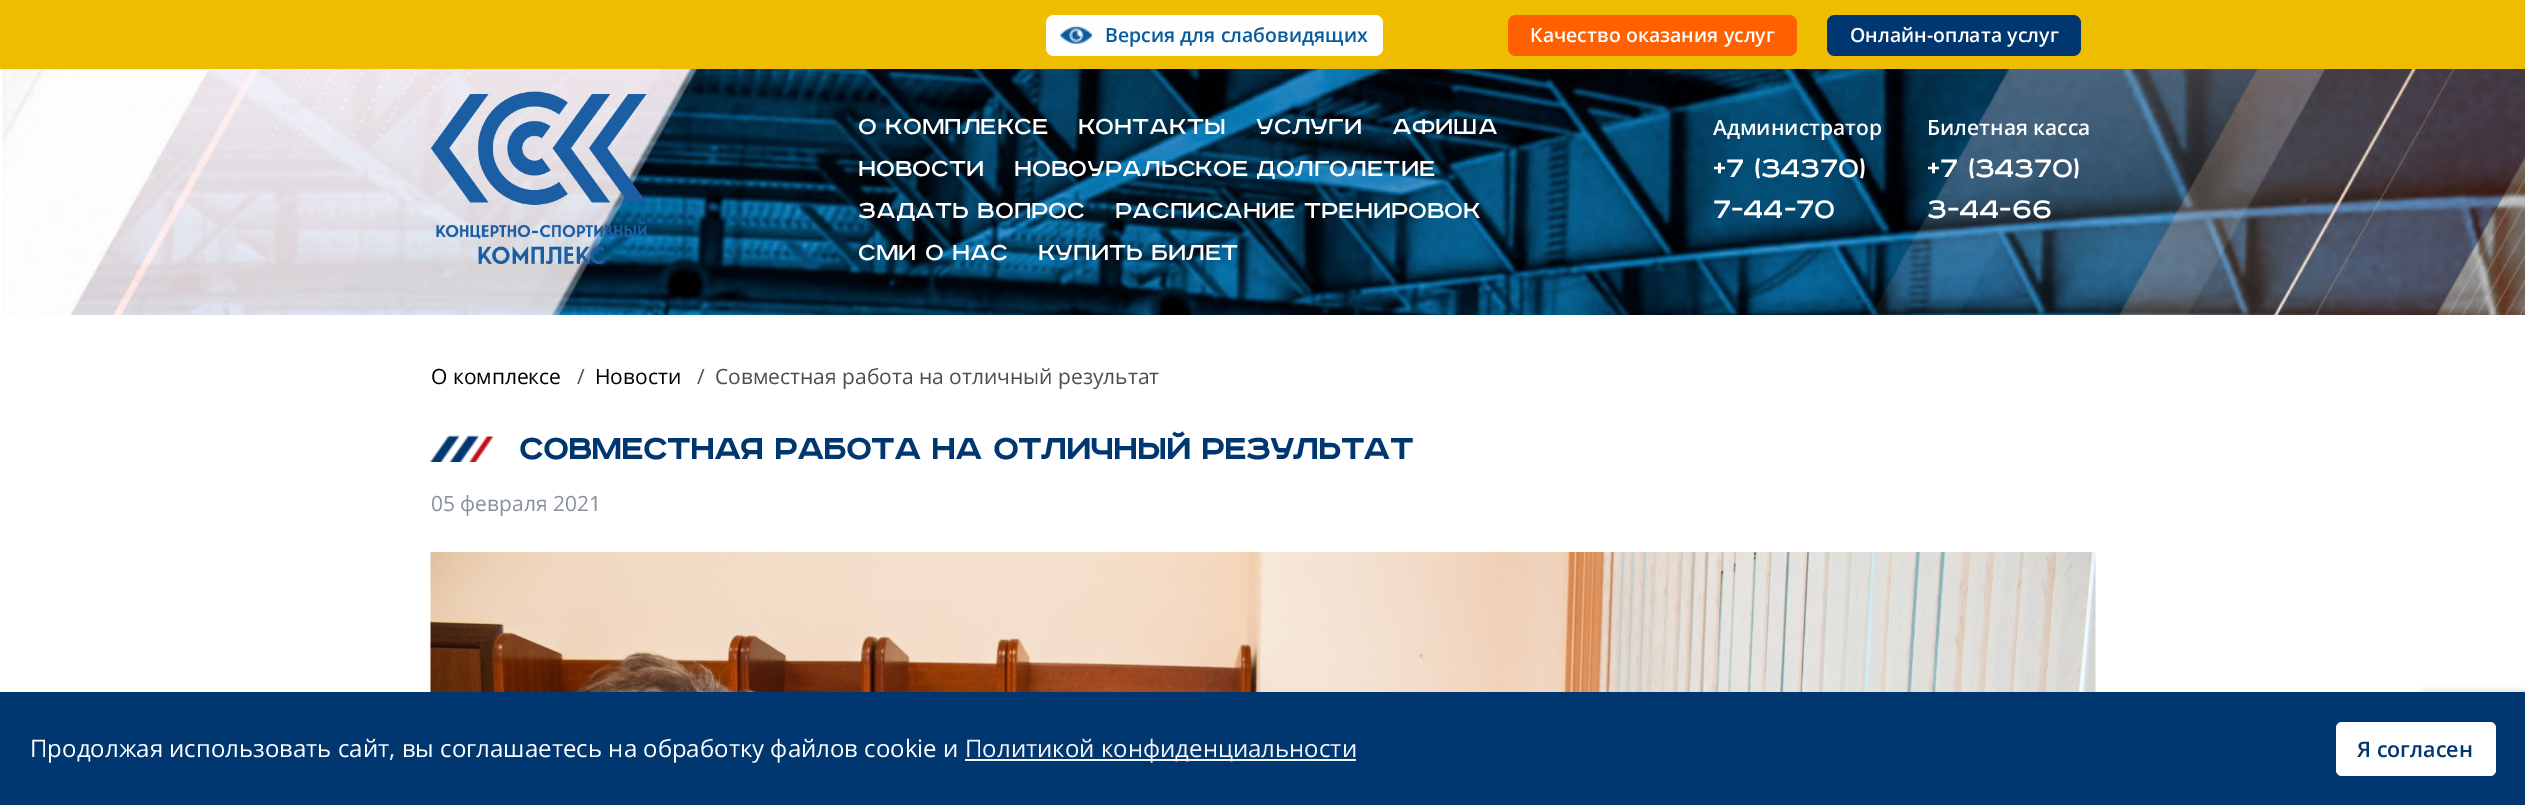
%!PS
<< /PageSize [2525 805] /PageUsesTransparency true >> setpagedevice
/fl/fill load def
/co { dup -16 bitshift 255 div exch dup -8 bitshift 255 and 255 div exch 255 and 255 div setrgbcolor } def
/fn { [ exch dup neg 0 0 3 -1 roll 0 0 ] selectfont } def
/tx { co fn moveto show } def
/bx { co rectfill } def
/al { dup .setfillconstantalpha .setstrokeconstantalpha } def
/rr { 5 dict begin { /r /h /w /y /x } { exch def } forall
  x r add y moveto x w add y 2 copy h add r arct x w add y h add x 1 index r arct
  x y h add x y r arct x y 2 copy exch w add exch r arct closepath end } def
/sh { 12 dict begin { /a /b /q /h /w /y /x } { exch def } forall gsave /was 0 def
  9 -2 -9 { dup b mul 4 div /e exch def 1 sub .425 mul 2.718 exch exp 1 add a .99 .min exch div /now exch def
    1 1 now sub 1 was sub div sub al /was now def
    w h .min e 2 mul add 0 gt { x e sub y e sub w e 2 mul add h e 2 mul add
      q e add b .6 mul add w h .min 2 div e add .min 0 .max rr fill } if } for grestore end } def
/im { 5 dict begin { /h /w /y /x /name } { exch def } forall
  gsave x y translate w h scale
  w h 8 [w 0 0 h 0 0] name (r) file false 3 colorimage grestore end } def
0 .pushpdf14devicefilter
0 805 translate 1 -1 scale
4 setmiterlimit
0 0 2525 805 16#FFFFFF bx
0 0 2525 69 16#EEBD00 bx
16#FFFEFF co
1046 15 337 41 8 rr fl
(media/1.raw) 1060 25 32 20 im
16#FF6002 co
1508 15 289 41 8 rr fl
16#013771 co
1827 15 254 41 8 rr fl
(media/2.raw) 2 69 2523 246 im
(media/3.raw) 430 91 217 173 im
(media/4.raw) 430 435 64 27 im
(media/5.raw) 430 552 1666 140 im
16#808080 co
2421 695 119 90 3 4 1 sh
0 692 2525 113 16#013771 bx
965 759 391 2 16#F5F5F5 bx
16#FFFFFF co
2336 722 160 54 6 rr fl
(Версия для слабовидящих) 1105 42 /OpenSans-SemiBold 19.5 16#0A5B9D tx
(Качество оказания услуг) 1530 42 /OpenSans-SemiBold 19.5 16#FFFFFF tx
(Онлайн-оплата услуг) 1850 42 /OpenSans-SemiBold 19.5 16#FFFFFF tx
(О КОМПЛЕКСЕ) 858 134 /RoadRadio-Regular 27 16#FFFFFF tx
(КОНТАКТЫ) 1078 134 /RoadRadio-Regular 27 16#FFFFFF tx
(УСЛУГИ) 1256 134 /RoadRadio-Regular 27 16#FFFFFF tx
(АФИША) 1392 134 /RoadRadio-Regular 27 16#FFFFFF tx
(НОВОСТИ) 858 176 /RoadRadio-Regular 27 16#FFFFFF tx
(НОВОУРАЛЬСКОЕ ДОЛГОЛЕТИЕ) 1014 176 /RoadRadio-Regular 27 16#FFFFFF tx
(ЗАДАТЬ ВОПРОС) 858 218 /RoadRadio-Regular 27 16#FFFFFF tx
(РАСПИСАНИЕ ТРЕНИРОВОК) 1115 218 /RoadRadio-Regular 27 16#FFFFFF tx
(СМИ О НАС) 858 260 /RoadRadio-Regular 27 16#FFFFFF tx
(КУПИТЬ БИЛЕТ) 1038 260 /RoadRadio-Regular 27 16#FFFFFF tx
(Администратор) 1713 135 /OpenSans-SemiBold 21 16#FFFFFF tx
(+7 \(34370\)) 1713 177 /RoadRadio-Regular 31.5 16#FFFFFF tx
(7-44-70) 1713 218 /RoadRadio-Regular 31.5 16#FFFFFF tx
(Билетная касса) 1927 135 /OpenSans-SemiBold 21 16#FFFFFF tx
(+7 \(34370\)) 1927 177 /RoadRadio-Regular 31.5 16#FFFFFF tx
(3-44-66) 1927 218 /RoadRadio-Regular 31.5 16#FFFFFF tx
(О комплексе) 431 384 /OpenSans-Regular 21 16#000000 tx
(/) 577 384 /OpenSans-Regular 21 16#4D4D4D tx
(Новости) 595 384 /OpenSans-Regular 21 16#000000 tx
(/) 697 384 /OpenSans-Regular 21 16#4D4D4D tx
(Совместная работа на отличный результат) 715 384 /OpenSans-Regular 21 16#4D4D4D tx
(Совместная работа на отличный результат) 519 459 /RoadRadio-Bold 36 16#013771 tx
(05 февраля 2021) 431 511 /OpenSans-Regular 21 16#878E9D tx
(Продолжая использовать сайт, вы соглашаетесь на обработку файлов cookie и) 30 757 /OpenSans-Regular 24 16#FFFFFF tx
(Политикой конфиденциальности) 965 757 /OpenSans-Regular 24 16#F5F5F5 tx
(Я согласен) 2357 757 /OpenSans-SemiBold 21.5 16#013771 tx
.poppdf14devicefilter showpage
